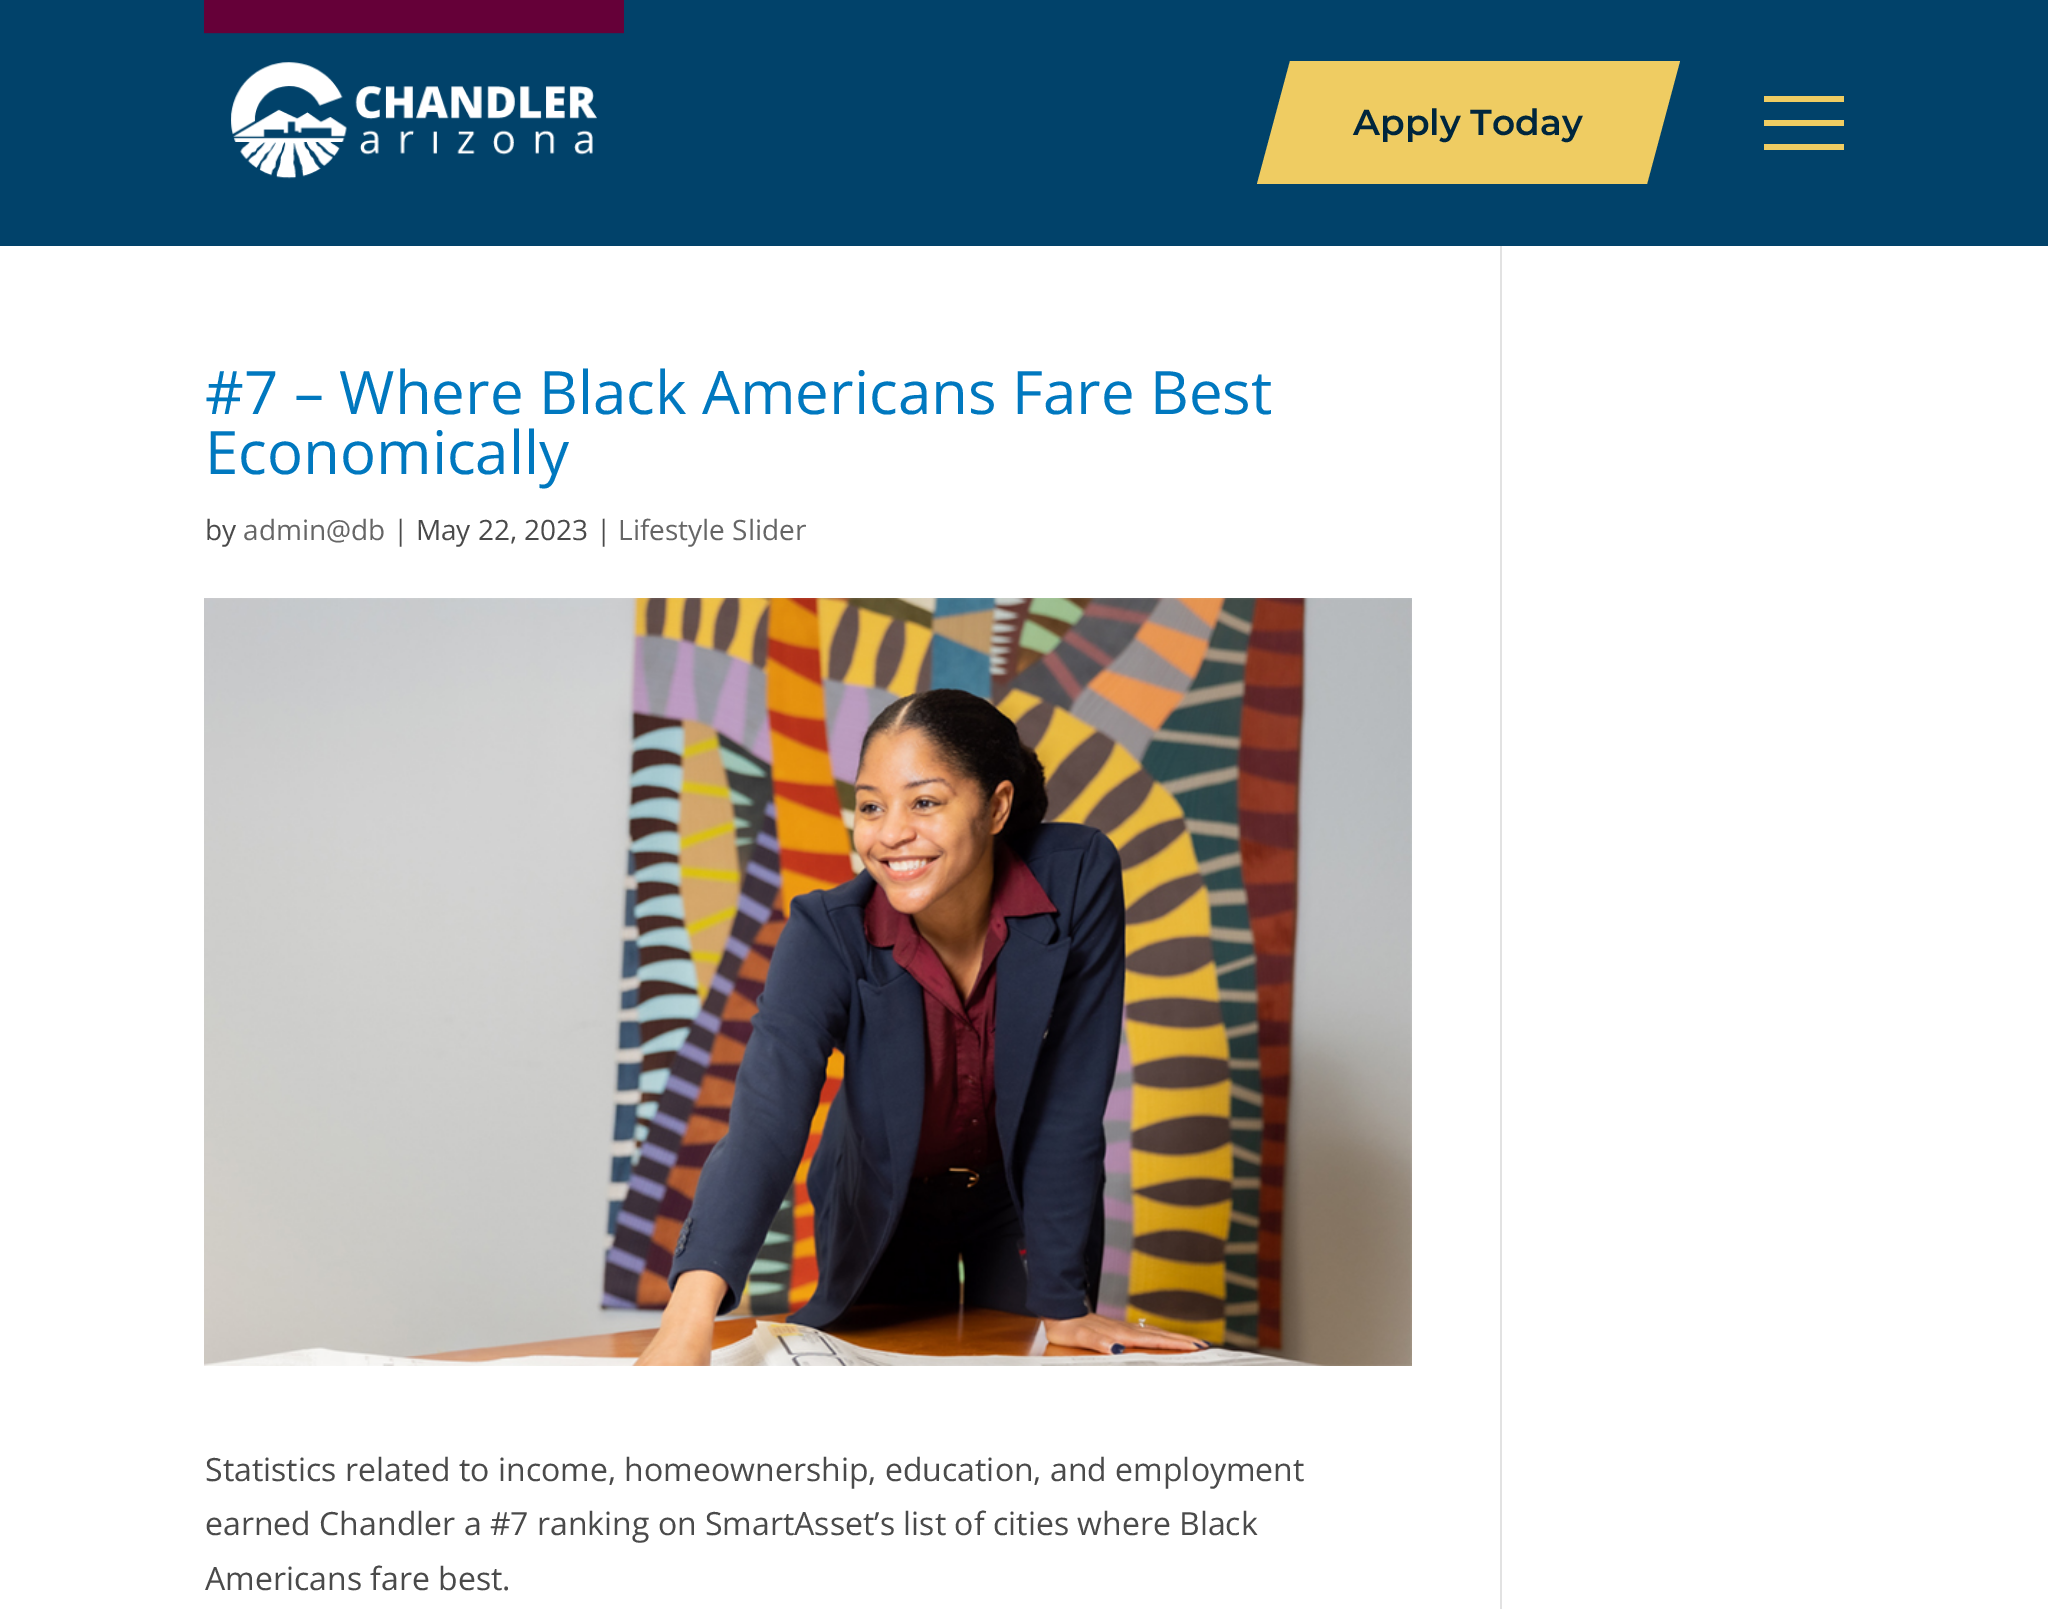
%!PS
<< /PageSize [2048 1609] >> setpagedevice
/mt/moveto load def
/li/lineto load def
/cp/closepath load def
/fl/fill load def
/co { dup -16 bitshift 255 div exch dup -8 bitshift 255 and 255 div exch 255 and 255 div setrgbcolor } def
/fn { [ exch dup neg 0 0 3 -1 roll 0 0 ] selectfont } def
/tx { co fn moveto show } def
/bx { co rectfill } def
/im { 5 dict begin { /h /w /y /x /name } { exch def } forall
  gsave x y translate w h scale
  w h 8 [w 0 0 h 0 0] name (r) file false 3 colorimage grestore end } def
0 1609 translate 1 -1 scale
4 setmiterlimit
0 0 2048 1609 16#FFFFFF bx
0 0 2048 246 16#01426A bx
(media/1.raw) 204 0 420 179 im
16#EFCC62 co
1290 61 mt 1680 61 li 1647 184 li 1257 184 li cp fl
1764 96 80 6 16#EFCC62 bx
1764 120 80 6 16#EFCC62 bx
1764 144 80 6 16#EFCC62 bx
(media/2.raw) 204 598 1208 768 im
1500 246 2 1363 16#E2E2E2 bx
(Apply Today) 1353 135 /Montserrat-SemiBold 36 16#00263D tx
(#7 – Where Black Americans Fare Best) 205 414 /OpenSans-Regular 60 16#0078BF tx
(Economically) 205 474 /OpenSans-Regular 60 16#0078BF tx
(by) 205 540 /OpenSans-Regular 28 16#4A4A4A tx
(admin@db) 243 540 /OpenSans-Regular 28 16#666666 tx
(| May 22, 2023 |) 393 540 /OpenSans-Regular 28 16#4A4A4A tx
(Lifestyle Slider) 618 540 /OpenSans-Regular 28 16#666666 tx
(Statistics related to income, homeownership, education, and employment) 205 1481 /OpenSans-Regular 32 16#4A4A4A tx
(earned Chandler a #7 ranking on SmartAsset’s list of cities where Black) 205 1535 /OpenSans-Regular 32 16#4A4A4A tx
(Americans fare best.) 205 1590 /OpenSans-Regular 32 16#4A4A4A tx
showpage
